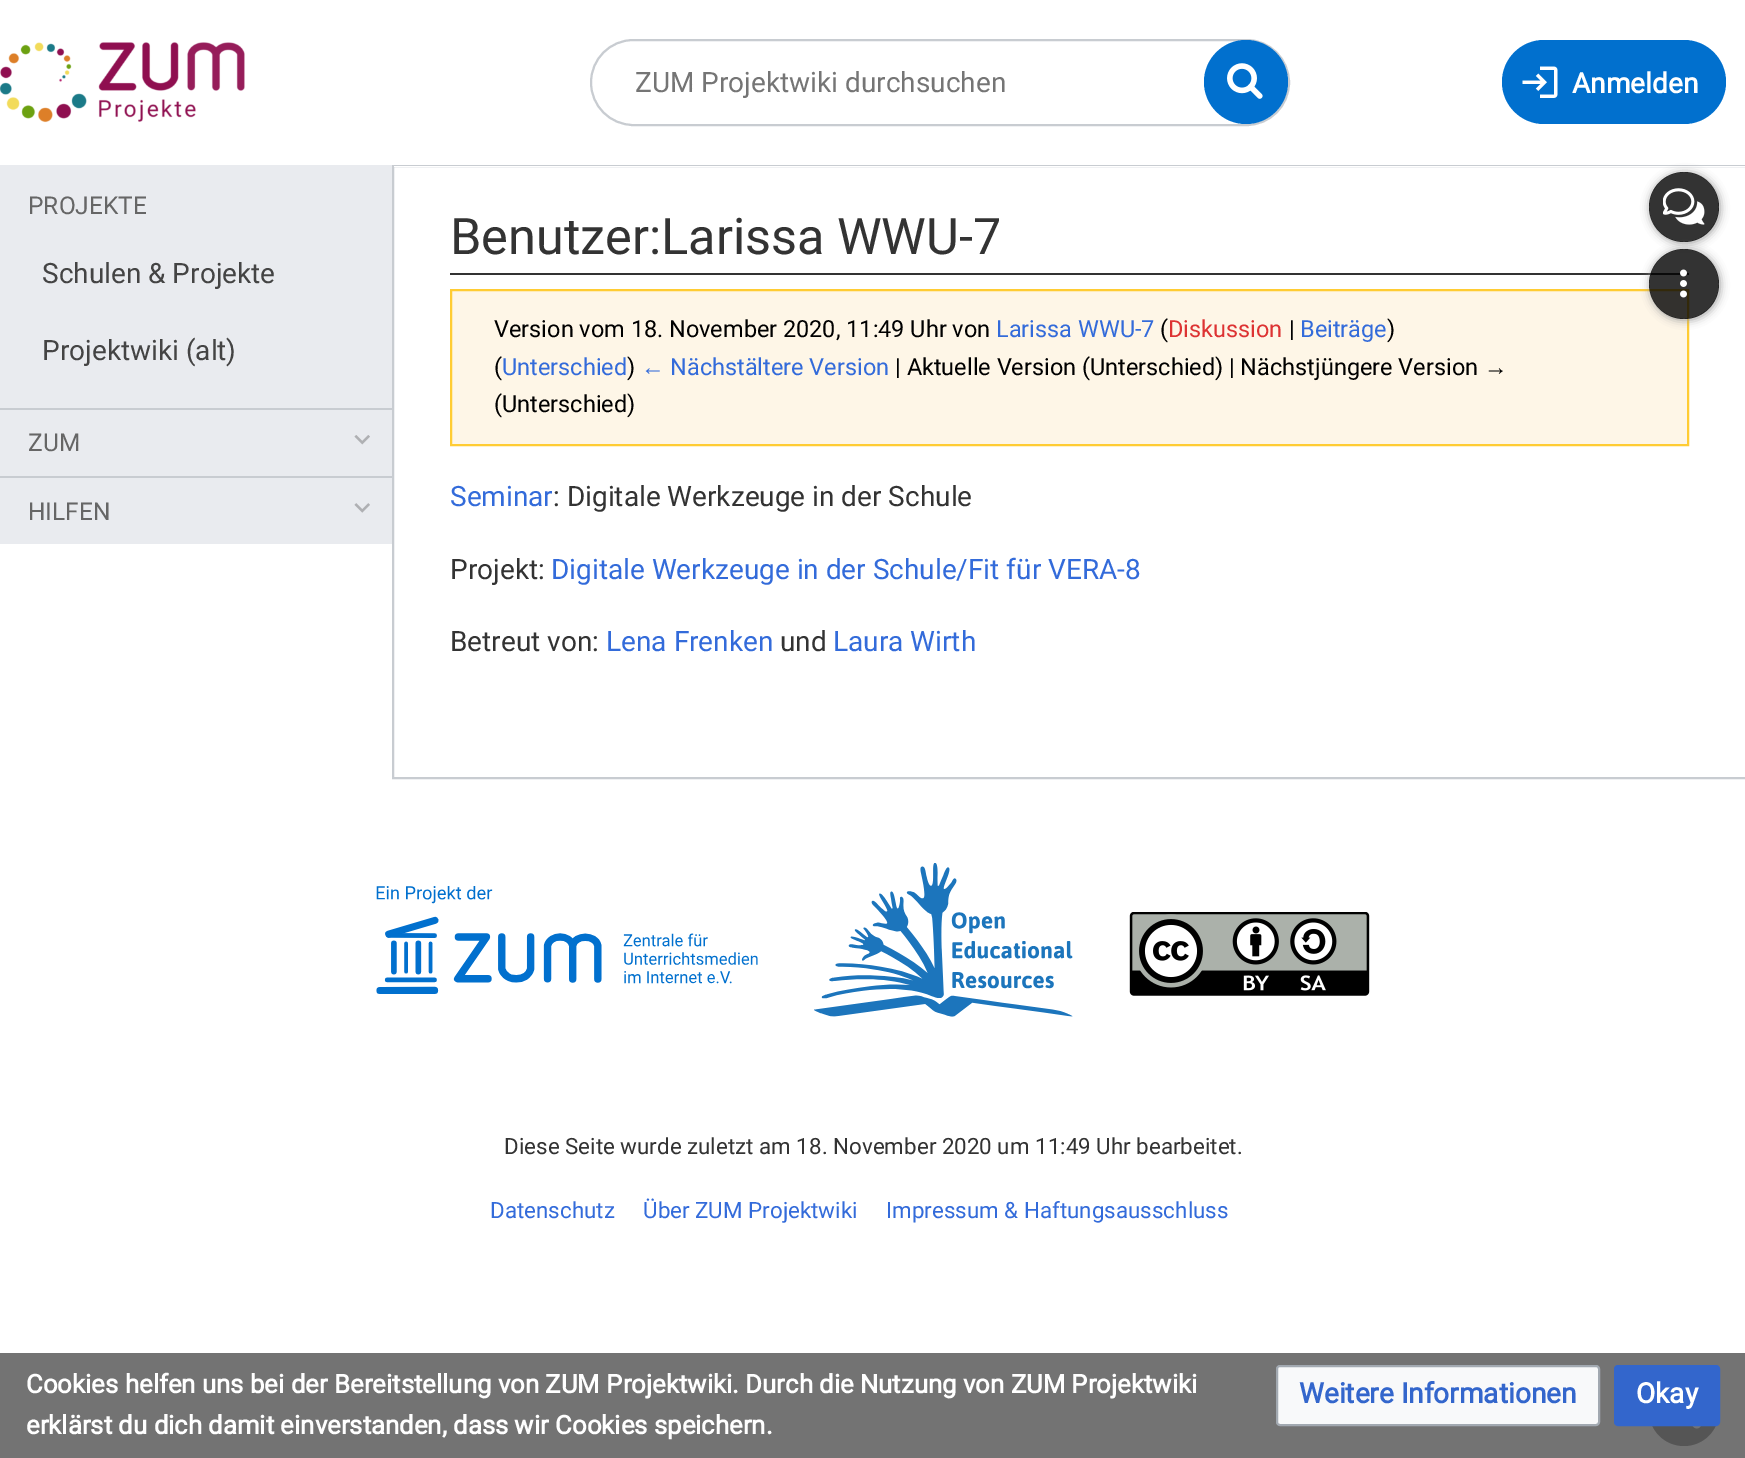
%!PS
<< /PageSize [1745 1458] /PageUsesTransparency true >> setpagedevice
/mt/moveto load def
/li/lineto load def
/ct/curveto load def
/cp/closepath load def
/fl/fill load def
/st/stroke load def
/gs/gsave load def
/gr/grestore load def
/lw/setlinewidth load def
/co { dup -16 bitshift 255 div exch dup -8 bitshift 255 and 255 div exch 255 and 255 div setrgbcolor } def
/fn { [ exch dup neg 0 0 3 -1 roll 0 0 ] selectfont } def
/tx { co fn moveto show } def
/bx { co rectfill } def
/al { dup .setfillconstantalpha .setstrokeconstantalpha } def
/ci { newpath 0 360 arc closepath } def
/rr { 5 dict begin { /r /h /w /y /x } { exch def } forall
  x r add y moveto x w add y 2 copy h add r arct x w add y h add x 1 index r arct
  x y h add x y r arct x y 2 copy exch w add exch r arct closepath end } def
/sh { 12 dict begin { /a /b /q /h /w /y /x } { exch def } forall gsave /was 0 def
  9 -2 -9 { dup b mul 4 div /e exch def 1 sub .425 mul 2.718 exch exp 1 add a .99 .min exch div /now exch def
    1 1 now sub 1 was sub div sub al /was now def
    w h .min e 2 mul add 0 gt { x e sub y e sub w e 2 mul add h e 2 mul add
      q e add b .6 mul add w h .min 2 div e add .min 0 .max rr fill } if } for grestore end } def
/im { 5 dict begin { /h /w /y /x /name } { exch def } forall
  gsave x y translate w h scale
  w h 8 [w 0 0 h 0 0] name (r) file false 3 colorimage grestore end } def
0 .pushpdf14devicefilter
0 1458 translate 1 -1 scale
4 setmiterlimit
0 0 1745 1458 16#FFFFFF bx
0 1353 1745 105 16#737373 bx
(media/1.raw) 0 42 245 81 im
16#C8CCD1 co
2 lw
591 40 698 85 42.5 rr st
16#0170CE co
1246 82 42 ci fl
(media/2.raw) 1227 63 36 36 im
1502 40 224 84 42 rr fl
(media/3.raw) 1522 66 36 32 im
0 165 392 379 16#E9EBEF bx
0 408 392 2 16#C8CCD1 bx
(media/4.raw) 354 435 16 10 im
0 476 392 2 16#C8CCD1 bx
(media/5.raw) 354 503 16 10 im
393 166 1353 612 rectstroke
394 166 1351 1 16#FFFFFF bx
gs
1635 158 mt 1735 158 li 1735 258 li 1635 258 li cp 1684 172 mt 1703.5 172 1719 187.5 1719 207 ct 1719 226.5 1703.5 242 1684 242 ct 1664.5 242 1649 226.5 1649 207 ct 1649 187.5 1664.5 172 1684 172 ct cp eoclip newpath
16#999999 co
1650 173 70 70 35 4.5 1 sh
gr
0.8 al
16#000000 co
1684 207 35 ci fl
1 al
(media/6.raw) 1663 188 42 37 im
450 273 1239 2 16#333333 bx
16#FEF6E7 co
451 290 mt 1688 290 li 1688 445 li 451 445 li cp gs fl gr
16#FFCC33 co
st
gs
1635 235 mt 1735 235 li 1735 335 li 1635 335 li cp 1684 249 mt 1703.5 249 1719 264.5 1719 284 ct 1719 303.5 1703.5 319 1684 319 ct 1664.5 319 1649 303.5 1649 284 ct 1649 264.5 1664.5 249 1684 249 ct cp eoclip newpath
16#999999 co
1650 250 70 70 35 4.5 1 sh
gr
0.8 al
16#000000 co
1684 284 35 ci fl
1 al
(media/7.raw) 1680 269 7 29 im
0.8 al
16#4D4D4D co
1684 1411 35 ci fl
1 al
(media/8.raw) 1692 1426 9 3 im
16#F8F9FA co
1277 1366 322 59 3 rr gs fl gr
16#A2A9B1 co
st
16#3366CC co
1615 1366 104 59 3 rr gs fl gr
st
(media/9.raw) 376 886 382 108 im
(media/10.raw) 814 863 259 154 im
(media/11.raw) 1129 912 241 84 im
(ZUM Projektwiki durchsuchen) 635 92 /Roboto-Regular 28 16#757575 tx
(Anmelden) 1572 93 /Roboto-Bold 28 16#FFFFFF tx
(PROJEKTE) 28 214 /Roboto-Regular 24.5 16#666666 tx
(Schulen & Projekte) 42 283 /Roboto-Regular 28 16#444444 tx
(Projektwiki \(alt\)) 42 360 /Roboto-Regular 28 16#444444 tx
(ZUM) 28 451 /Roboto-Regular 24.5 16#666666 tx
(HILFEN) 28 520 /Roboto-Regular 24.5 16#666666 tx
(Benutzer:Larissa WWU-7) 450 254 /Roboto-Regular 50.4 16#333333 tx
(Version vom 18. November 2020, 11:49 Uhr von) 494 337 /Roboto-Regular 23.5 16#000000 tx
(Larissa WWU-7) 996 337 /Roboto-Regular 23.5 16#336BDA tx
(\() 1160 337 /Roboto-Regular 23.5 16#000000 tx
(Diskussion) 1168 337 /Roboto-Regular 23.5 16#DD3333 tx
(|) 1289 337 /Roboto-Regular 23.5 16#000000 tx
(Beiträge) 1300 337 /Roboto-Regular 23.5 16#336BDA tx
(\)) 1387 337 /Roboto-Regular 23.5 16#000000 tx
(\() 494 375 /Roboto-Regular 23.5 16#000000 tx
(Unterschied) 502 375 /Roboto-Regular 23.5 16#336BDA tx
(\)) 627 375 /Roboto-Regular 23.5 16#000000 tx
(←) 641 375 /LiberationSans-Regular 23.5 16#336BDA tx
(Nächstältere Version) 670 375 /Roboto-Regular 23.5 16#336BDA tx
(| Aktuelle Version \(Unterschied\) | Nächstjüngere Version) 895 375 /Roboto-Regular 23.5 16#000000 tx
(→) 1484 375 /LiberationSans-Regular 23.5 16#000000 tx
(\(Unterschied\)) 494 412 /Roboto-Regular 23.5 16#000000 tx
(Seminar) 450 506 /Roboto-Regular 28 16#336BDA tx
(: Digitale Werkzeuge in der Schule) 553 506 /Roboto-Regular 28 16#333333 tx
(Projekt:) 450 579 /Roboto-Regular 28 16#333333 tx
(Digitale Werkzeuge in der Schule/Fit für VERA-8) 551 579 /Roboto-Regular 28 16#336BDA tx
(Betreut von:) 450 651 /Roboto-Regular 28 16#333333 tx
(Lena Frenken) 606 651 /Roboto-Regular 28 16#336BDA tx
(und) 780 651 /Roboto-Regular 28 16#333333 tx
(Laura Wirth) 833 651 /Roboto-Regular 28 16#336BDA tx
(Cookies helfen uns bei der Bereitstellung von ZUM Projektwiki. Durch die Nutzung von ZUM Projektwiki) 26 1393 /Roboto-Bold 25.75 16#FFFFFF tx
(erklärst du dich damit einverstanden, dass wir Cookies speichern.) 26 1434 /Roboto-Bold 25.75 16#FFFFFF tx
(Weitere Informationen) 1299 1403 /Roboto-Bold 28 16#3366CC tx
(Okay) 1636 1403 /Roboto-Bold 28 16#FFFFFF tx
(Diese Seite wurde zuletzt am 18. November 2020 um 11:49 Uhr bearbeitet.) 504 1154 /Roboto-Regular 22.4 16#333333 tx
(Datenschutz) 490 1218 /Roboto-Regular 22.4 16#336BDA tx
(Über ZUM Projektwiki) 643 1218 /Roboto-Regular 22.4 16#336BDA tx
(Impressum & Haftungsausschluss) 886 1218 /Roboto-Regular 22.4 16#336BDA tx
.poppdf14devicefilter showpage
